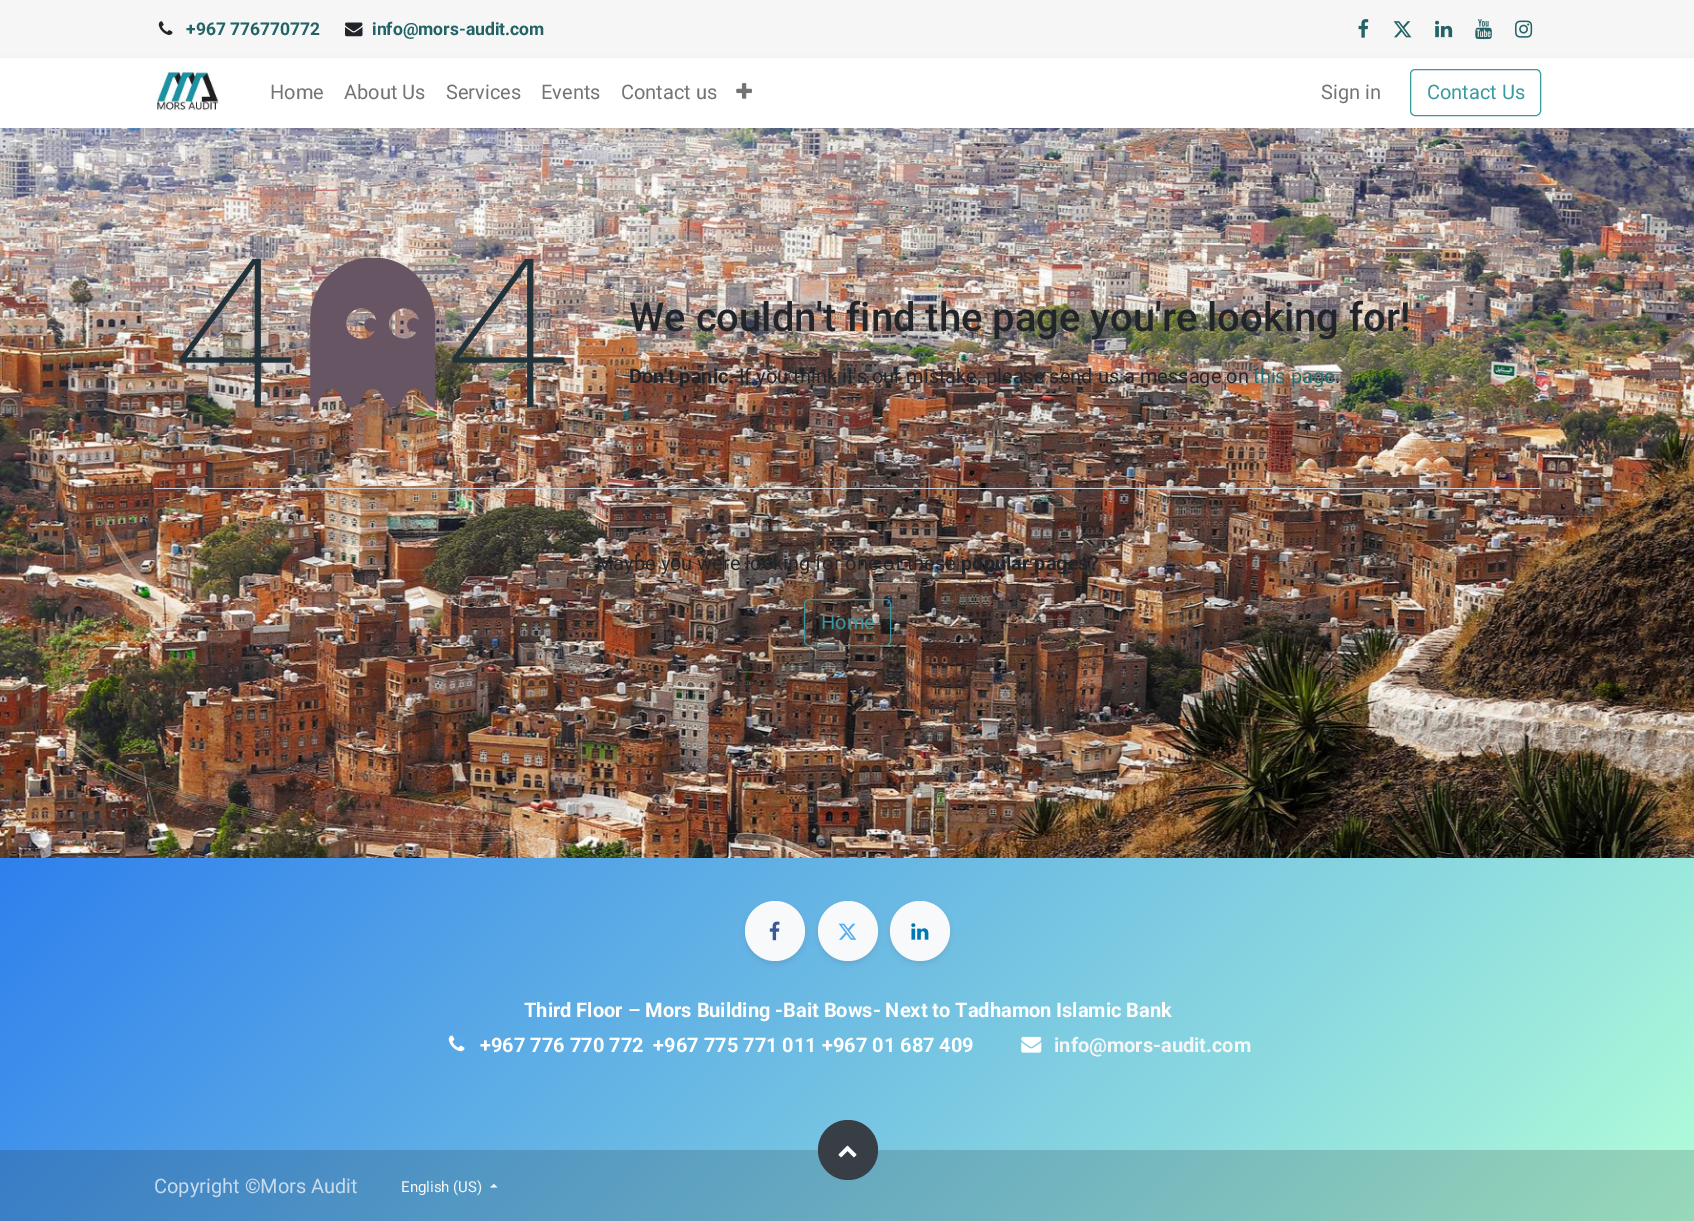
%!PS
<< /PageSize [1694 1221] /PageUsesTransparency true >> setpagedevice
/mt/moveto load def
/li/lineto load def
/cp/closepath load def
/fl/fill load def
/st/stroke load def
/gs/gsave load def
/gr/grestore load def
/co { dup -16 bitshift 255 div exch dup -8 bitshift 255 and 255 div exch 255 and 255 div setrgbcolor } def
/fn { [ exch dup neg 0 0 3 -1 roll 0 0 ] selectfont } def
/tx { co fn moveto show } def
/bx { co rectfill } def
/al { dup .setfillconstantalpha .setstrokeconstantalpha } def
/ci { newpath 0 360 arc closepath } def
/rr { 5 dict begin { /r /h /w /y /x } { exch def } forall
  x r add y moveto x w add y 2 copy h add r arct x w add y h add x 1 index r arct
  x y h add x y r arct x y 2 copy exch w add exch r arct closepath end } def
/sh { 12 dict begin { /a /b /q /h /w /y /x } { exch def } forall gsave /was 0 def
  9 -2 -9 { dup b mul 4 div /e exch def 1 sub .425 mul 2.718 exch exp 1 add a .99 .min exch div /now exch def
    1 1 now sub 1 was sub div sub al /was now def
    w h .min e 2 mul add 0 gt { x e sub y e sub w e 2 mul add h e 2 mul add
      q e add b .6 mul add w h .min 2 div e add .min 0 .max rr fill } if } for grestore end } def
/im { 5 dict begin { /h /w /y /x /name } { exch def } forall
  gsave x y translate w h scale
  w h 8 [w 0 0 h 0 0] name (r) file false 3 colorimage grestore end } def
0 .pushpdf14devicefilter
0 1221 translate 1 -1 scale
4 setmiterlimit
0 0 1694 1221 16#FFFFFF bx
(media/1.raw) 0 128 1694 730 im
0 0 1694 58 16#F6F6F6 bx
(media/2.raw) 158 21 15 14 im
(media/3.raw) 345 22 18 15 im
(media/4.raw) 1358 19 11 19 im
(media/5.raw) 1393 21 19 17 im
(media/6.raw) 1435 20 18 18 im
(media/7.raw) 1475 19 17 21 im
(media/8.raw) 1515 20 18 18 im
16#000000 co
0 60 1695 70 0 2.5 .07 sh
0 58 1694 70 16#FFFFFF bx
(media/9.raw) 154 67 66 44 im
(media/10.raw) 736 83 16 16 im
16#379A9F co
1410.5 69.5 130 46 4.5 rr st
(media/11.raw) 179 258 385 150 im
154 488 1387 1 16#CED4DA bx
16#379A9F co
804.5 599.5 86 46 4.5 rr st
gs 0 858 mt 1694 858 li 1694 1221 li 0 1221 li cp clip newpath
<< /ShadingType 2 /ColorSpace /DeviceRGB /Coords [333 525 1362 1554] /Extend [true true] /Function << /FunctionType 2 /Domain [0 1] /C0 [.184 .502 .929] /C1 [.698 1 .855] /N 1 >> >> shfill gr
16#000000 co
745 904 60 60 30 2.5 .07 sh
16#F8F9FA co
775 931 30 ci fl
(media/12.raw) 769 921 11 20 im
16#000000 co
818 904 60 60 30 2.5 .07 sh
16#F8F9FA co
848 931 30 ci fl
(media/13.raw) 838 923 19 17 im
16#000000 co
890 904 60 60 30 2.5 .07 sh
16#F8F9FA co
920 931 30 ci fl
(media/14.raw) 911 923 18 17 im
(media/15.raw) 448 1035 17 17 im
(media/16.raw) 1021 1036 21 17 im
0.15 al
0 1150 1694 71 16#000000 bx
1 al
16#383E45 co
848 1150 30 ci fl
(media/17.raw) 838 1145 19 13 im
16#F6F6F6 co
497.5 1187.5 mt 490 1187.5 li 494 1184 li cp fl
(+967 776770772) 186 35 /Roboto-Bold 17.5 16#236366 tx
(info@mors-audit.com) 372 35 /Roboto-Bold 17.5 16#236366 tx
(Home) 270 99 /Roboto-Regular 20 16#737373 tx
(About Us) 344 99 /Roboto-Regular 20 16#737373 tx
(Services) 446 99 /Roboto-Regular 20 16#737373 tx
(Events) 541 99 /Roboto-Regular 20 16#737373 tx
(Contact us) 621 99 /Roboto-Regular 20 16#737373 tx
(Sign in) 1321 99 /Roboto-Regular 20 16#737373 tx
(Contact Us) 1427 99 /Roboto-Regular 20 16#379A9F tx
(We couldn't find the page you're looking for!) 629 331 /Roboto-Medium 40 16#212529 tx
(Don't panic.) 629 383 /Roboto-Bold 20 16#212529 tx
(If you think it's our mistake, please send us a message on) 739 383 /Roboto-Regular 20 16#212529 tx
(this page) 1253 383 /Roboto-Regular 20 16#276E72 tx
(.) 1335 383 /Roboto-Regular 20 16#212529 tx
(Maybe you were looking for one of these) 596 570 /Roboto-Regular 20 16#212529 tx
(popular pages?) 961 570 /Roboto-Bold 20 16#212529 tx
(Home) 821 629 /Roboto-Regular 20 16#379A9F tx
(Third Floor – Mors Building -Bait Bows- Next to Tadhamon Islamic Bank) 524 1017 /Roboto-Bold 20 16#FFFFFF tx
(+967 776 770 772  +967 775 771 011 +967 01 687 409) 480 1052 /Roboto-Bold 20 16#FFFFFF tx
(info@mors-audit.com) 1054 1052 /Roboto-Bold 20 16#F6F6F6 tx
(Copyright ©Mors Audit) 154 1193 /Roboto-Regular 20 16#C8DCEE tx
(English \(US\)) 401 1192 /Roboto-Regular 15 16#F6F6F6 tx
.poppdf14devicefilter showpage
